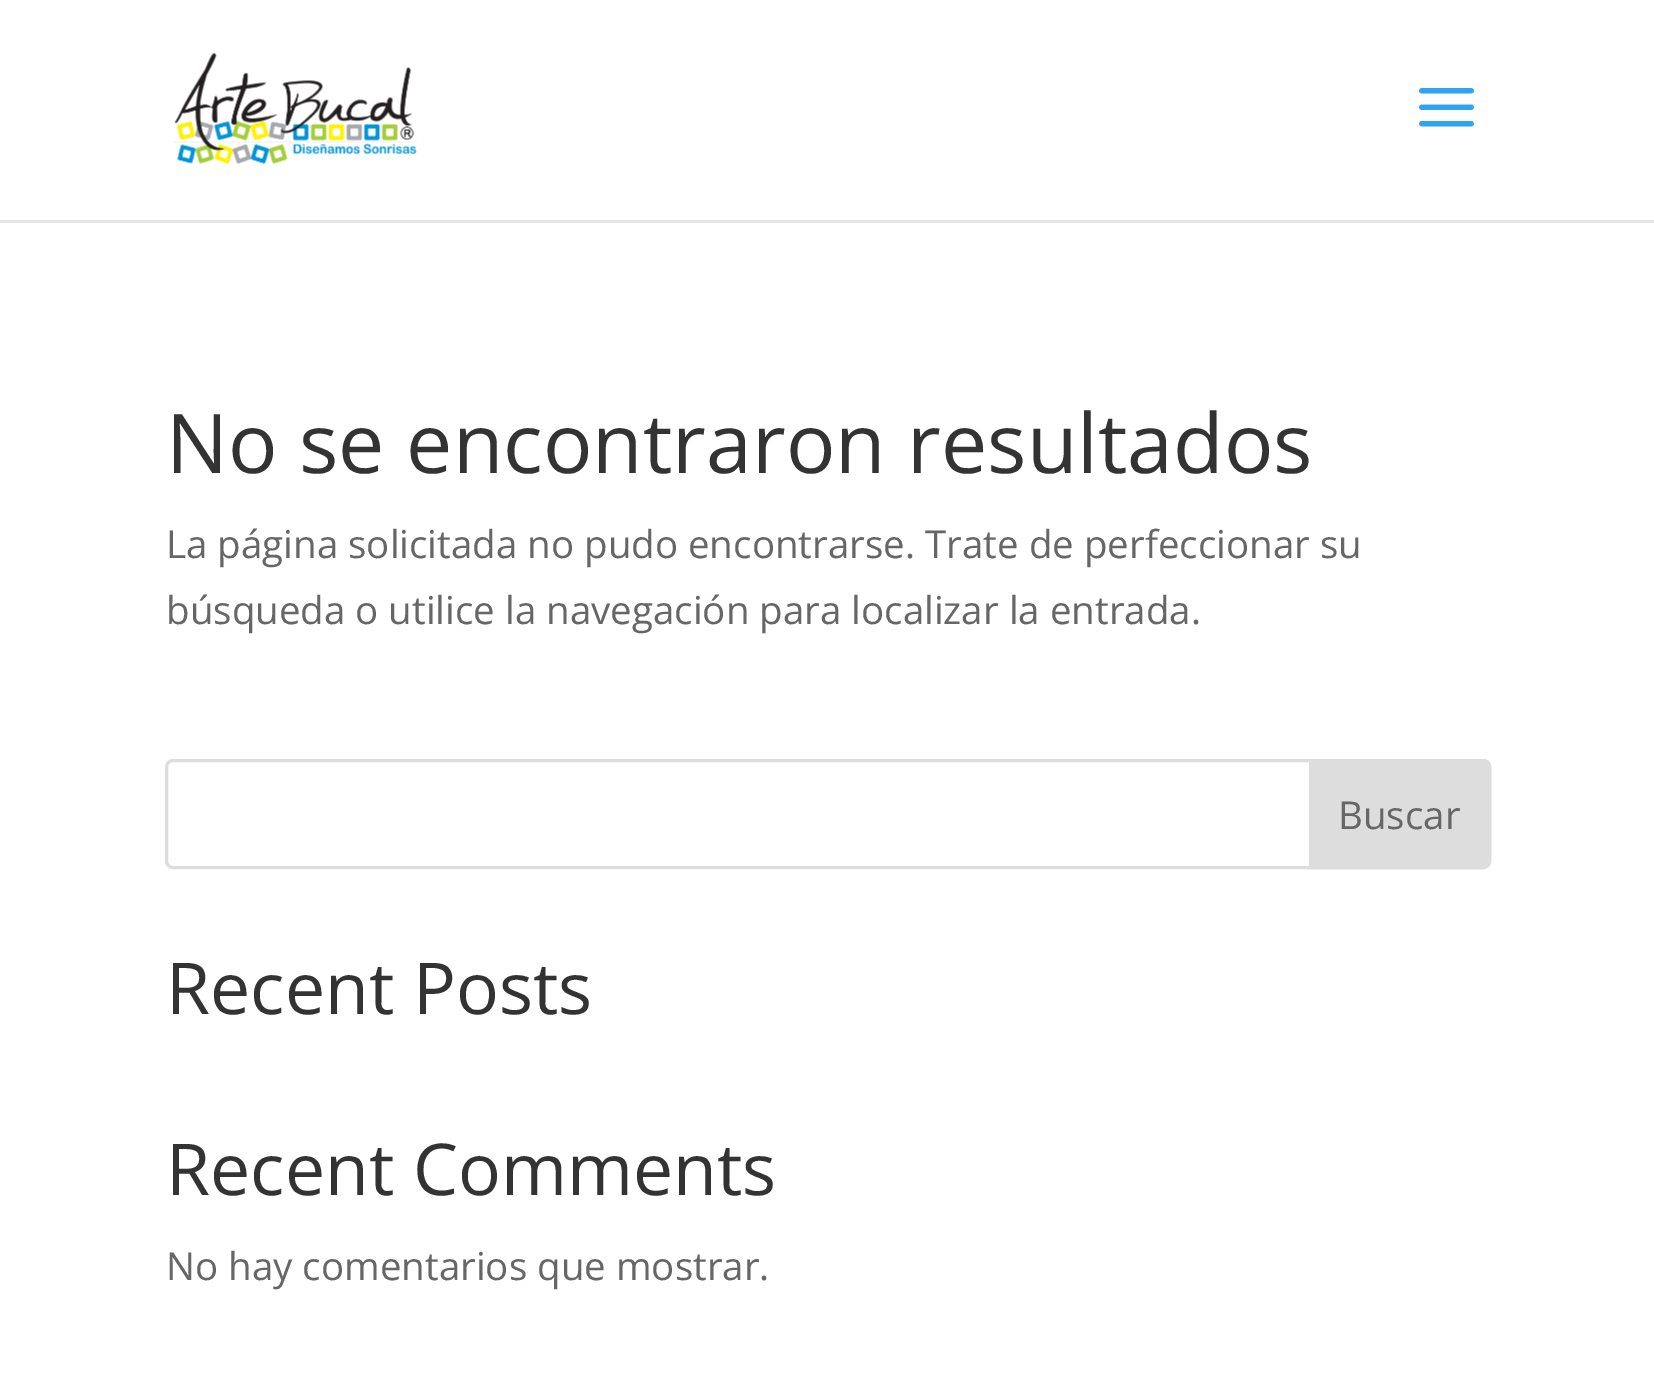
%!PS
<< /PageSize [1654 1399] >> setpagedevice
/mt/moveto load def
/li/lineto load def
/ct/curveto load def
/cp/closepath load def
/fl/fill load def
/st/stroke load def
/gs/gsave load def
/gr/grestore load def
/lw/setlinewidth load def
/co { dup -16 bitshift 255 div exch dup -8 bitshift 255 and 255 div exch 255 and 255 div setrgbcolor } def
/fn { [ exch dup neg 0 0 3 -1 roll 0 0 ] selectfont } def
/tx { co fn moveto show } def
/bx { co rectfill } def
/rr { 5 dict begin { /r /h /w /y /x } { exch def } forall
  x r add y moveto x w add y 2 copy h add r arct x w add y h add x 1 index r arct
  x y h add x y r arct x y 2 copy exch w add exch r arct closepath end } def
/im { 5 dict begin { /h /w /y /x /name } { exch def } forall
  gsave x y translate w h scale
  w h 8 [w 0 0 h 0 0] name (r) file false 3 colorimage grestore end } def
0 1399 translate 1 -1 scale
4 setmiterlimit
0 0 1654 1399 16#FFFFFF bx
16#E6E6E6 co
0 220 mt 0 223 li 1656 223 li 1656 3 li 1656 220 li cp fl
(media/1.raw) 173 52 244 112 im
(media/2.raw) 1419 88 55 39 im
16#DDDDDD co
3 lw
166.5 760.5 1323 107 6.5 rr st
1310.5 760.5 mt 1483 760.5 li 1486.5 760.5 1489.5 763.5 1489.5 767 ct 1489.5 861 li 1489.5 864.5 1486.5 867.5 1483 867.5 ct 1310.5 867.5 li cp gs fl gr
st
(No se encontraron resultados) 166 473 /OpenSans-Regular 82.5 16#333333 tx
(La página solicitada no pudo encontrarse. Trate de perfeccionar su) 166 558 /OpenSans-Regular 38.5 16#666666 tx
(búsqueda o utilice la navegación para localizar la entrada.) 166 624 /OpenSans-Regular 38.5 16#666666 tx
(Buscar) 1338 829 /OpenSans-Regular 38.5 16#666666 tx
(Recent Posts) 166 1014 /OpenSans-Regular 71.5 16#333333 tx
(Recent Comments) 166 1195 /OpenSans-Regular 71.5 16#333333 tx
(No hay comentarios que mostrar.) 166 1280 /OpenSans-Regular 38.5 16#666666 tx
showpage
